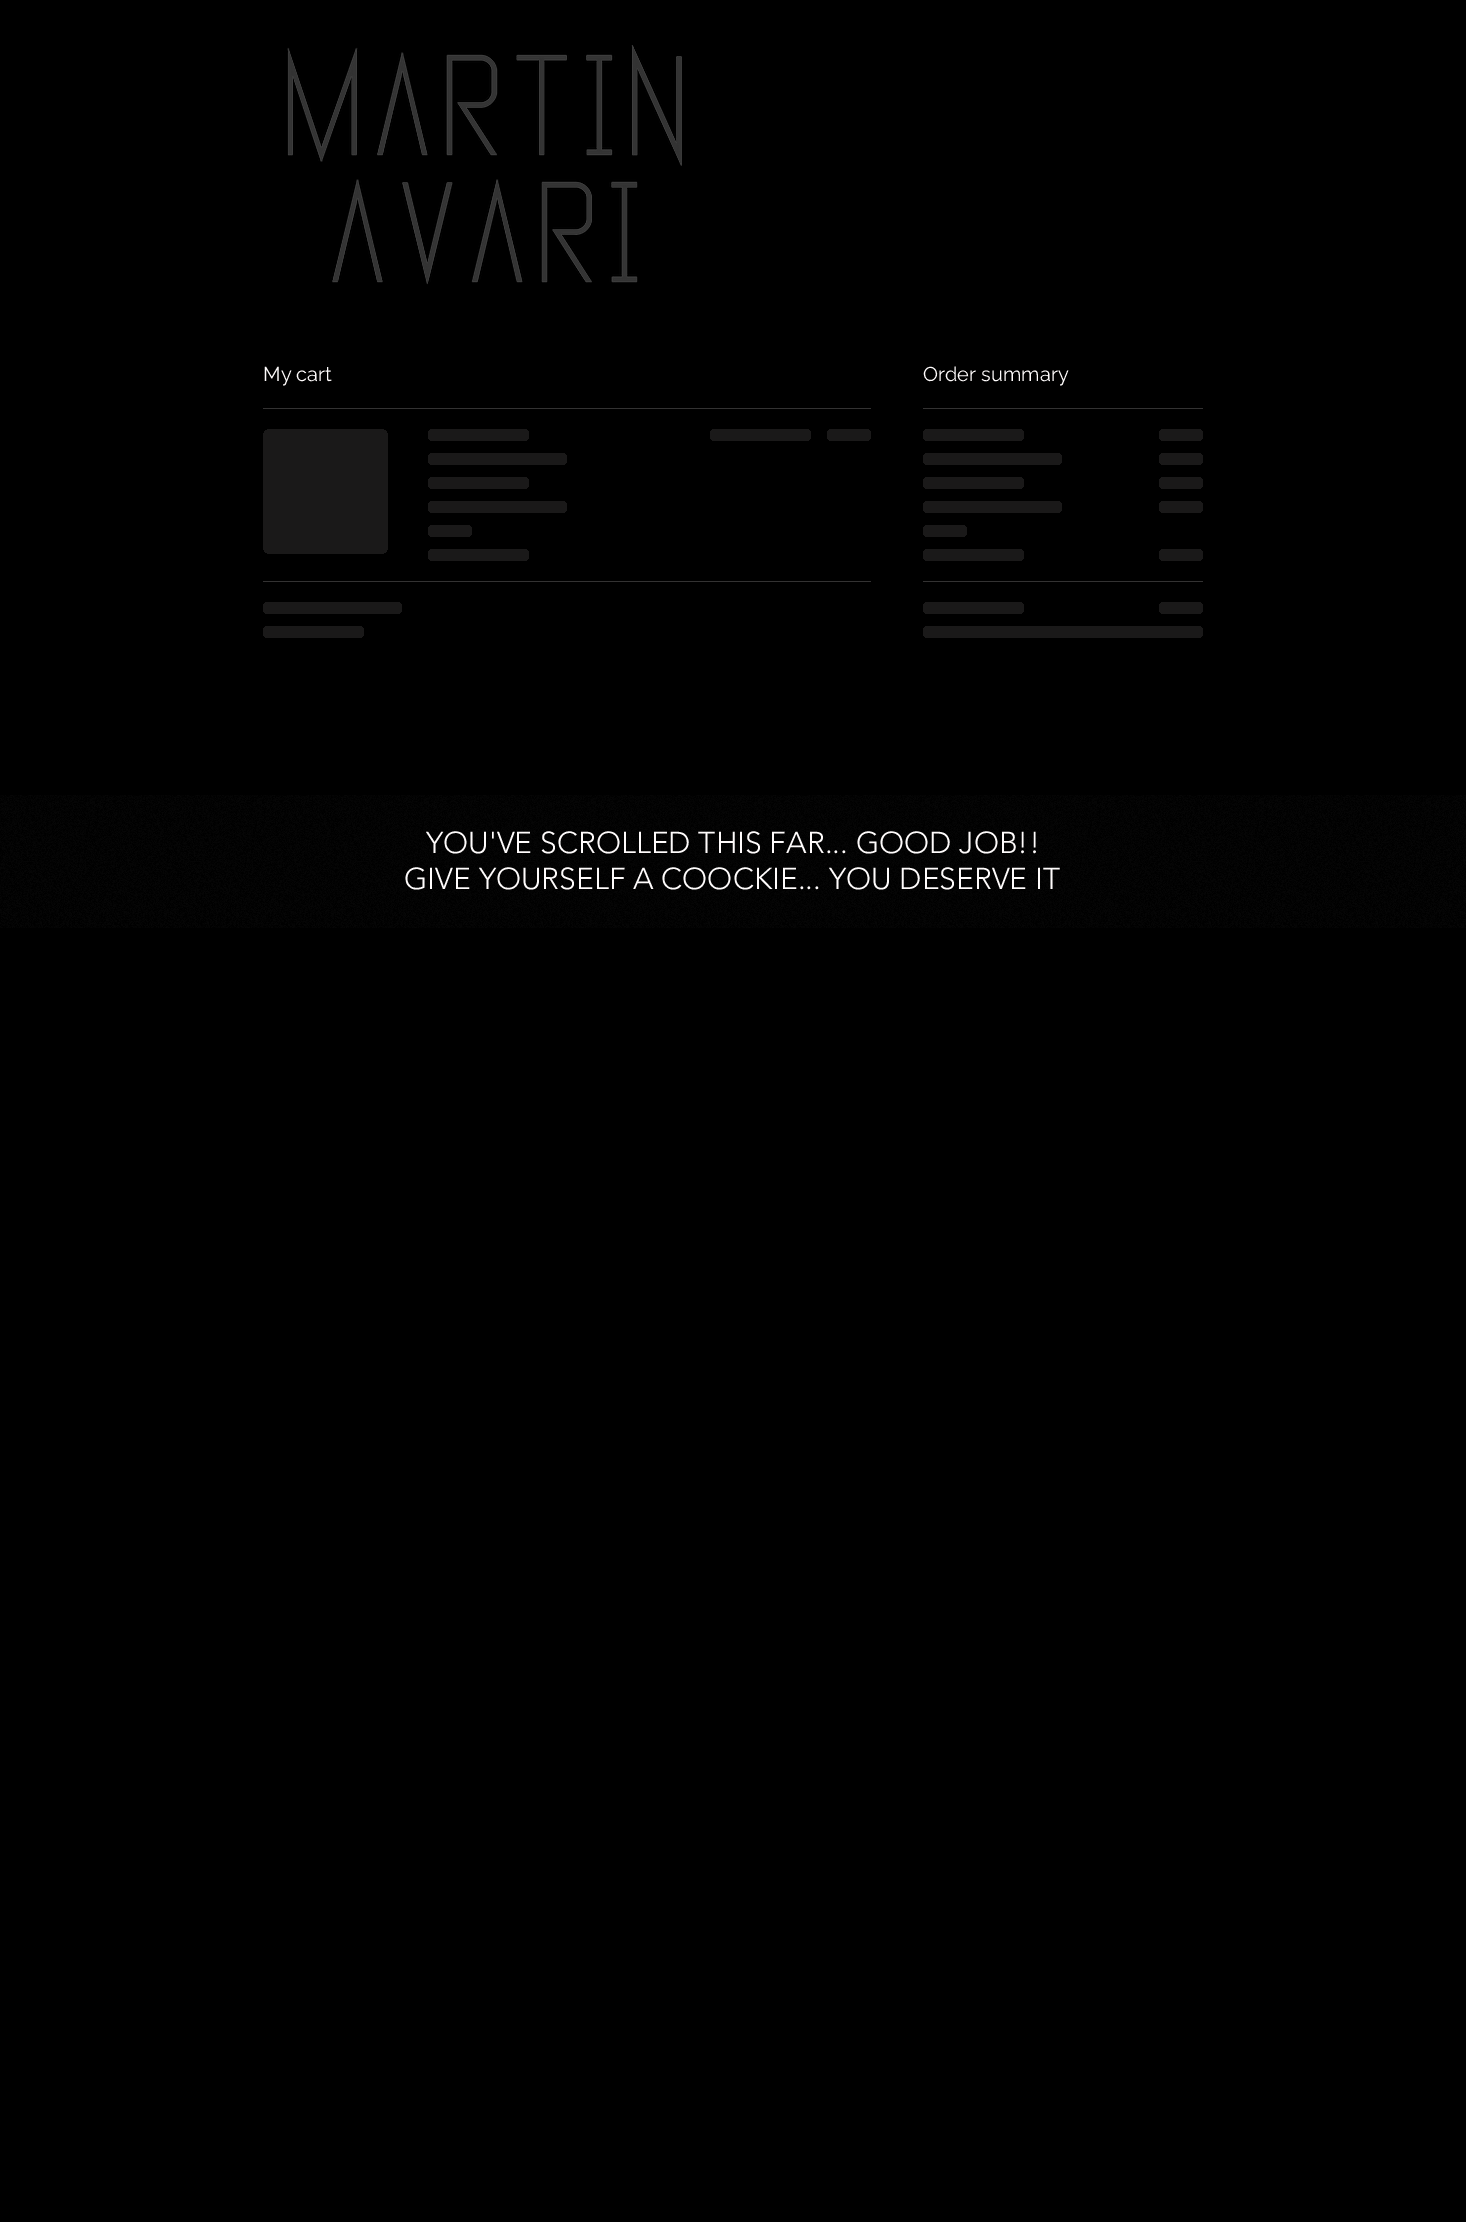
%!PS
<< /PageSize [1466 2222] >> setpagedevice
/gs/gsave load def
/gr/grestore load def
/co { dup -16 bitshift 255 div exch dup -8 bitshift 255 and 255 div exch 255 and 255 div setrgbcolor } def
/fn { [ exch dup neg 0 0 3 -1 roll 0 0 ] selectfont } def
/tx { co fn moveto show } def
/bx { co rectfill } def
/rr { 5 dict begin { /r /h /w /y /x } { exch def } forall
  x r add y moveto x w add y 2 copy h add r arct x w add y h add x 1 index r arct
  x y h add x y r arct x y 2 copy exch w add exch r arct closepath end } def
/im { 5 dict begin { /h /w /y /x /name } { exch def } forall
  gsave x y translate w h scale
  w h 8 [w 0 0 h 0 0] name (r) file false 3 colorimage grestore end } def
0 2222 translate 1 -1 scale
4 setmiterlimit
0 0 1466 2222 16#000000 bx
(media/1.raw) 287 45 395 240 im
263 408 608 1 16#333232 bx
gs 263 429 125 125 8 rr clip newpath
<< /ShadingType 2 /ColorSpace /DeviceRGB /Coords [263 492 763 492] /Extend [true true] /Function << /FunctionType 3 /Domain [0 1] /Functions [<< /FunctionType 2 /Domain [0 1] /C0 [.102 .098 .098] /C1 [.102 .098 .098] /N 1 >> << /FunctionType 2 /Domain [0 1] /C0 [.102 .098 .098] /C1 [.2 .196 .196] /N 1 >> << /FunctionType 2 /Domain [0 1] /C0 [.2 .196 .196] /C1 [.102 .098 .098] /N 1 >> << /FunctionType 2 /Domain [0 1] /C0 [.102 .098 .098] /C1 [.102 .098 .098] /N 1 >>] /Bounds [.25 .37 .63] /Encode [0 1 0 1 0 1 0 1] >> >> shfill gr
gs 428 429 101 12 6 rr clip newpath
<< /ShadingType 2 /ColorSpace /DeviceRGB /Coords [428 435 832 435] /Extend [true true] /Function << /FunctionType 3 /Domain [0 1] /Functions [<< /FunctionType 2 /Domain [0 1] /C0 [.102 .098 .098] /C1 [.102 .098 .098] /N 1 >> << /FunctionType 2 /Domain [0 1] /C0 [.102 .098 .098] /C1 [.2 .196 .196] /N 1 >> << /FunctionType 2 /Domain [0 1] /C0 [.2 .196 .196] /C1 [.102 .098 .098] /N 1 >> << /FunctionType 2 /Domain [0 1] /C0 [.102 .098 .098] /C1 [.102 .098 .098] /N 1 >>] /Bounds [.25 .37 .63] /Encode [0 1 0 1 0 1 0 1] >> >> shfill gr
gs 428 453 139 12 6 rr clip newpath
<< /ShadingType 2 /ColorSpace /DeviceRGB /Coords [428 459 984 459] /Extend [true true] /Function << /FunctionType 3 /Domain [0 1] /Functions [<< /FunctionType 2 /Domain [0 1] /C0 [.102 .098 .098] /C1 [.102 .098 .098] /N 1 >> << /FunctionType 2 /Domain [0 1] /C0 [.102 .098 .098] /C1 [.2 .196 .196] /N 1 >> << /FunctionType 2 /Domain [0 1] /C0 [.2 .196 .196] /C1 [.102 .098 .098] /N 1 >> << /FunctionType 2 /Domain [0 1] /C0 [.102 .098 .098] /C1 [.102 .098 .098] /N 1 >>] /Bounds [.25 .37 .63] /Encode [0 1 0 1 0 1 0 1] >> >> shfill gr
gs 428 477 101 12 6 rr clip newpath
<< /ShadingType 2 /ColorSpace /DeviceRGB /Coords [428 483 832 483] /Extend [true true] /Function << /FunctionType 3 /Domain [0 1] /Functions [<< /FunctionType 2 /Domain [0 1] /C0 [.102 .098 .098] /C1 [.102 .098 .098] /N 1 >> << /FunctionType 2 /Domain [0 1] /C0 [.102 .098 .098] /C1 [.2 .196 .196] /N 1 >> << /FunctionType 2 /Domain [0 1] /C0 [.2 .196 .196] /C1 [.102 .098 .098] /N 1 >> << /FunctionType 2 /Domain [0 1] /C0 [.102 .098 .098] /C1 [.102 .098 .098] /N 1 >>] /Bounds [.25 .37 .63] /Encode [0 1 0 1 0 1 0 1] >> >> shfill gr
gs 428 501 139 12 6 rr clip newpath
<< /ShadingType 2 /ColorSpace /DeviceRGB /Coords [428 507 984 507] /Extend [true true] /Function << /FunctionType 3 /Domain [0 1] /Functions [<< /FunctionType 2 /Domain [0 1] /C0 [.102 .098 .098] /C1 [.102 .098 .098] /N 1 >> << /FunctionType 2 /Domain [0 1] /C0 [.102 .098 .098] /C1 [.2 .196 .196] /N 1 >> << /FunctionType 2 /Domain [0 1] /C0 [.2 .196 .196] /C1 [.102 .098 .098] /N 1 >> << /FunctionType 2 /Domain [0 1] /C0 [.102 .098 .098] /C1 [.102 .098 .098] /N 1 >>] /Bounds [.25 .37 .63] /Encode [0 1 0 1 0 1 0 1] >> >> shfill gr
gs 428 525 44 12 6 rr clip newpath
<< /ShadingType 2 /ColorSpace /DeviceRGB /Coords [428 531 604 531] /Extend [true true] /Function << /FunctionType 3 /Domain [0 1] /Functions [<< /FunctionType 2 /Domain [0 1] /C0 [.102 .098 .098] /C1 [.102 .098 .098] /N 1 >> << /FunctionType 2 /Domain [0 1] /C0 [.102 .098 .098] /C1 [.2 .196 .196] /N 1 >> << /FunctionType 2 /Domain [0 1] /C0 [.2 .196 .196] /C1 [.102 .098 .098] /N 1 >> << /FunctionType 2 /Domain [0 1] /C0 [.102 .098 .098] /C1 [.102 .098 .098] /N 1 >>] /Bounds [.25 .37 .63] /Encode [0 1 0 1 0 1 0 1] >> >> shfill gr
gs 428 549 101 12 6 rr clip newpath
<< /ShadingType 2 /ColorSpace /DeviceRGB /Coords [428 555 832 555] /Extend [true true] /Function << /FunctionType 3 /Domain [0 1] /Functions [<< /FunctionType 2 /Domain [0 1] /C0 [.102 .098 .098] /C1 [.102 .098 .098] /N 1 >> << /FunctionType 2 /Domain [0 1] /C0 [.102 .098 .098] /C1 [.2 .196 .196] /N 1 >> << /FunctionType 2 /Domain [0 1] /C0 [.2 .196 .196] /C1 [.102 .098 .098] /N 1 >> << /FunctionType 2 /Domain [0 1] /C0 [.102 .098 .098] /C1 [.102 .098 .098] /N 1 >>] /Bounds [.25 .37 .63] /Encode [0 1 0 1 0 1 0 1] >> >> shfill gr
gs 710 429 101 12 6 rr clip newpath
<< /ShadingType 2 /ColorSpace /DeviceRGB /Coords [710 435 1114 435] /Extend [true true] /Function << /FunctionType 3 /Domain [0 1] /Functions [<< /FunctionType 2 /Domain [0 1] /C0 [.102 .098 .098] /C1 [.102 .098 .098] /N 1 >> << /FunctionType 2 /Domain [0 1] /C0 [.102 .098 .098] /C1 [.2 .196 .196] /N 1 >> << /FunctionType 2 /Domain [0 1] /C0 [.2 .196 .196] /C1 [.102 .098 .098] /N 1 >> << /FunctionType 2 /Domain [0 1] /C0 [.102 .098 .098] /C1 [.102 .098 .098] /N 1 >>] /Bounds [.25 .37 .63] /Encode [0 1 0 1 0 1 0 1] >> >> shfill gr
gs 827 429 44 12 6 rr clip newpath
<< /ShadingType 2 /ColorSpace /DeviceRGB /Coords [827 435 1003 435] /Extend [true true] /Function << /FunctionType 3 /Domain [0 1] /Functions [<< /FunctionType 2 /Domain [0 1] /C0 [.102 .098 .098] /C1 [.102 .098 .098] /N 1 >> << /FunctionType 2 /Domain [0 1] /C0 [.102 .098 .098] /C1 [.2 .196 .196] /N 1 >> << /FunctionType 2 /Domain [0 1] /C0 [.2 .196 .196] /C1 [.102 .098 .098] /N 1 >> << /FunctionType 2 /Domain [0 1] /C0 [.102 .098 .098] /C1 [.102 .098 .098] /N 1 >>] /Bounds [.25 .37 .63] /Encode [0 1 0 1 0 1 0 1] >> >> shfill gr
263 581 608 1 16#333232 bx
gs 263 602 139 12 6 rr clip newpath
<< /ShadingType 2 /ColorSpace /DeviceRGB /Coords [263 608 819 608] /Extend [true true] /Function << /FunctionType 3 /Domain [0 1] /Functions [<< /FunctionType 2 /Domain [0 1] /C0 [.102 .098 .098] /C1 [.102 .098 .098] /N 1 >> << /FunctionType 2 /Domain [0 1] /C0 [.102 .098 .098] /C1 [.2 .196 .196] /N 1 >> << /FunctionType 2 /Domain [0 1] /C0 [.2 .196 .196] /C1 [.102 .098 .098] /N 1 >> << /FunctionType 2 /Domain [0 1] /C0 [.102 .098 .098] /C1 [.102 .098 .098] /N 1 >>] /Bounds [.25 .37 .63] /Encode [0 1 0 1 0 1 0 1] >> >> shfill gr
gs 263 626 101 12 6 rr clip newpath
<< /ShadingType 2 /ColorSpace /DeviceRGB /Coords [263 632 667 632] /Extend [true true] /Function << /FunctionType 3 /Domain [0 1] /Functions [<< /FunctionType 2 /Domain [0 1] /C0 [.102 .098 .098] /C1 [.102 .098 .098] /N 1 >> << /FunctionType 2 /Domain [0 1] /C0 [.102 .098 .098] /C1 [.2 .196 .196] /N 1 >> << /FunctionType 2 /Domain [0 1] /C0 [.2 .196 .196] /C1 [.102 .098 .098] /N 1 >> << /FunctionType 2 /Domain [0 1] /C0 [.102 .098 .098] /C1 [.102 .098 .098] /N 1 >>] /Bounds [.25 .37 .63] /Encode [0 1 0 1 0 1 0 1] >> >> shfill gr
923 408 280 1 16#333232 bx
gs 923 429 101 12 6 rr clip newpath
<< /ShadingType 2 /ColorSpace /DeviceRGB /Coords [923 435 1327 435] /Extend [true true] /Function << /FunctionType 3 /Domain [0 1] /Functions [<< /FunctionType 2 /Domain [0 1] /C0 [.102 .098 .098] /C1 [.102 .098 .098] /N 1 >> << /FunctionType 2 /Domain [0 1] /C0 [.102 .098 .098] /C1 [.2 .196 .196] /N 1 >> << /FunctionType 2 /Domain [0 1] /C0 [.2 .196 .196] /C1 [.102 .098 .098] /N 1 >> << /FunctionType 2 /Domain [0 1] /C0 [.102 .098 .098] /C1 [.102 .098 .098] /N 1 >>] /Bounds [.25 .37 .63] /Encode [0 1 0 1 0 1 0 1] >> >> shfill gr
gs 1159 429 44 12 6 rr clip newpath
<< /ShadingType 2 /ColorSpace /DeviceRGB /Coords [1159 435 1335 435] /Extend [true true] /Function << /FunctionType 3 /Domain [0 1] /Functions [<< /FunctionType 2 /Domain [0 1] /C0 [.102 .098 .098] /C1 [.102 .098 .098] /N 1 >> << /FunctionType 2 /Domain [0 1] /C0 [.102 .098 .098] /C1 [.2 .196 .196] /N 1 >> << /FunctionType 2 /Domain [0 1] /C0 [.2 .196 .196] /C1 [.102 .098 .098] /N 1 >> << /FunctionType 2 /Domain [0 1] /C0 [.102 .098 .098] /C1 [.102 .098 .098] /N 1 >>] /Bounds [.25 .37 .63] /Encode [0 1 0 1 0 1 0 1] >> >> shfill gr
gs 923 453 139 12 6 rr clip newpath
<< /ShadingType 2 /ColorSpace /DeviceRGB /Coords [923 459 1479 459] /Extend [true true] /Function << /FunctionType 3 /Domain [0 1] /Functions [<< /FunctionType 2 /Domain [0 1] /C0 [.102 .098 .098] /C1 [.102 .098 .098] /N 1 >> << /FunctionType 2 /Domain [0 1] /C0 [.102 .098 .098] /C1 [.2 .196 .196] /N 1 >> << /FunctionType 2 /Domain [0 1] /C0 [.2 .196 .196] /C1 [.102 .098 .098] /N 1 >> << /FunctionType 2 /Domain [0 1] /C0 [.102 .098 .098] /C1 [.102 .098 .098] /N 1 >>] /Bounds [.25 .37 .63] /Encode [0 1 0 1 0 1 0 1] >> >> shfill gr
gs 1159 453 44 12 6 rr clip newpath
<< /ShadingType 2 /ColorSpace /DeviceRGB /Coords [1159 459 1335 459] /Extend [true true] /Function << /FunctionType 3 /Domain [0 1] /Functions [<< /FunctionType 2 /Domain [0 1] /C0 [.102 .098 .098] /C1 [.102 .098 .098] /N 1 >> << /FunctionType 2 /Domain [0 1] /C0 [.102 .098 .098] /C1 [.2 .196 .196] /N 1 >> << /FunctionType 2 /Domain [0 1] /C0 [.2 .196 .196] /C1 [.102 .098 .098] /N 1 >> << /FunctionType 2 /Domain [0 1] /C0 [.102 .098 .098] /C1 [.102 .098 .098] /N 1 >>] /Bounds [.25 .37 .63] /Encode [0 1 0 1 0 1 0 1] >> >> shfill gr
gs 923 477 101 12 6 rr clip newpath
<< /ShadingType 2 /ColorSpace /DeviceRGB /Coords [923 483 1327 483] /Extend [true true] /Function << /FunctionType 3 /Domain [0 1] /Functions [<< /FunctionType 2 /Domain [0 1] /C0 [.102 .098 .098] /C1 [.102 .098 .098] /N 1 >> << /FunctionType 2 /Domain [0 1] /C0 [.102 .098 .098] /C1 [.2 .196 .196] /N 1 >> << /FunctionType 2 /Domain [0 1] /C0 [.2 .196 .196] /C1 [.102 .098 .098] /N 1 >> << /FunctionType 2 /Domain [0 1] /C0 [.102 .098 .098] /C1 [.102 .098 .098] /N 1 >>] /Bounds [.25 .37 .63] /Encode [0 1 0 1 0 1 0 1] >> >> shfill gr
gs 1159 477 44 12 6 rr clip newpath
<< /ShadingType 2 /ColorSpace /DeviceRGB /Coords [1159 483 1335 483] /Extend [true true] /Function << /FunctionType 3 /Domain [0 1] /Functions [<< /FunctionType 2 /Domain [0 1] /C0 [.102 .098 .098] /C1 [.102 .098 .098] /N 1 >> << /FunctionType 2 /Domain [0 1] /C0 [.102 .098 .098] /C1 [.2 .196 .196] /N 1 >> << /FunctionType 2 /Domain [0 1] /C0 [.2 .196 .196] /C1 [.102 .098 .098] /N 1 >> << /FunctionType 2 /Domain [0 1] /C0 [.102 .098 .098] /C1 [.102 .098 .098] /N 1 >>] /Bounds [.25 .37 .63] /Encode [0 1 0 1 0 1 0 1] >> >> shfill gr
gs 923 501 139 12 6 rr clip newpath
<< /ShadingType 2 /ColorSpace /DeviceRGB /Coords [923 507 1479 507] /Extend [true true] /Function << /FunctionType 3 /Domain [0 1] /Functions [<< /FunctionType 2 /Domain [0 1] /C0 [.102 .098 .098] /C1 [.102 .098 .098] /N 1 >> << /FunctionType 2 /Domain [0 1] /C0 [.102 .098 .098] /C1 [.2 .196 .196] /N 1 >> << /FunctionType 2 /Domain [0 1] /C0 [.2 .196 .196] /C1 [.102 .098 .098] /N 1 >> << /FunctionType 2 /Domain [0 1] /C0 [.102 .098 .098] /C1 [.102 .098 .098] /N 1 >>] /Bounds [.25 .37 .63] /Encode [0 1 0 1 0 1 0 1] >> >> shfill gr
gs 1159 501 44 12 6 rr clip newpath
<< /ShadingType 2 /ColorSpace /DeviceRGB /Coords [1159 507 1335 507] /Extend [true true] /Function << /FunctionType 3 /Domain [0 1] /Functions [<< /FunctionType 2 /Domain [0 1] /C0 [.102 .098 .098] /C1 [.102 .098 .098] /N 1 >> << /FunctionType 2 /Domain [0 1] /C0 [.102 .098 .098] /C1 [.2 .196 .196] /N 1 >> << /FunctionType 2 /Domain [0 1] /C0 [.2 .196 .196] /C1 [.102 .098 .098] /N 1 >> << /FunctionType 2 /Domain [0 1] /C0 [.102 .098 .098] /C1 [.102 .098 .098] /N 1 >>] /Bounds [.25 .37 .63] /Encode [0 1 0 1 0 1 0 1] >> >> shfill gr
gs 923 525 44 12 6 rr clip newpath
<< /ShadingType 2 /ColorSpace /DeviceRGB /Coords [923 531 1099 531] /Extend [true true] /Function << /FunctionType 3 /Domain [0 1] /Functions [<< /FunctionType 2 /Domain [0 1] /C0 [.102 .098 .098] /C1 [.102 .098 .098] /N 1 >> << /FunctionType 2 /Domain [0 1] /C0 [.102 .098 .098] /C1 [.2 .196 .196] /N 1 >> << /FunctionType 2 /Domain [0 1] /C0 [.2 .196 .196] /C1 [.102 .098 .098] /N 1 >> << /FunctionType 2 /Domain [0 1] /C0 [.102 .098 .098] /C1 [.102 .098 .098] /N 1 >>] /Bounds [.25 .37 .63] /Encode [0 1 0 1 0 1 0 1] >> >> shfill gr
gs 923 549 101 12 6 rr clip newpath
<< /ShadingType 2 /ColorSpace /DeviceRGB /Coords [923 555 1327 555] /Extend [true true] /Function << /FunctionType 3 /Domain [0 1] /Functions [<< /FunctionType 2 /Domain [0 1] /C0 [.102 .098 .098] /C1 [.102 .098 .098] /N 1 >> << /FunctionType 2 /Domain [0 1] /C0 [.102 .098 .098] /C1 [.2 .196 .196] /N 1 >> << /FunctionType 2 /Domain [0 1] /C0 [.2 .196 .196] /C1 [.102 .098 .098] /N 1 >> << /FunctionType 2 /Domain [0 1] /C0 [.102 .098 .098] /C1 [.102 .098 .098] /N 1 >>] /Bounds [.25 .37 .63] /Encode [0 1 0 1 0 1 0 1] >> >> shfill gr
gs 1159 549 44 12 6 rr clip newpath
<< /ShadingType 2 /ColorSpace /DeviceRGB /Coords [1159 555 1335 555] /Extend [true true] /Function << /FunctionType 3 /Domain [0 1] /Functions [<< /FunctionType 2 /Domain [0 1] /C0 [.102 .098 .098] /C1 [.102 .098 .098] /N 1 >> << /FunctionType 2 /Domain [0 1] /C0 [.102 .098 .098] /C1 [.2 .196 .196] /N 1 >> << /FunctionType 2 /Domain [0 1] /C0 [.2 .196 .196] /C1 [.102 .098 .098] /N 1 >> << /FunctionType 2 /Domain [0 1] /C0 [.102 .098 .098] /C1 [.102 .098 .098] /N 1 >>] /Bounds [.25 .37 .63] /Encode [0 1 0 1 0 1 0 1] >> >> shfill gr
923 581 280 1 16#333232 bx
gs 923 602 101 12 6 rr clip newpath
<< /ShadingType 2 /ColorSpace /DeviceRGB /Coords [923 608 1327 608] /Extend [true true] /Function << /FunctionType 3 /Domain [0 1] /Functions [<< /FunctionType 2 /Domain [0 1] /C0 [.102 .098 .098] /C1 [.102 .098 .098] /N 1 >> << /FunctionType 2 /Domain [0 1] /C0 [.102 .098 .098] /C1 [.2 .196 .196] /N 1 >> << /FunctionType 2 /Domain [0 1] /C0 [.2 .196 .196] /C1 [.102 .098 .098] /N 1 >> << /FunctionType 2 /Domain [0 1] /C0 [.102 .098 .098] /C1 [.102 .098 .098] /N 1 >>] /Bounds [.25 .37 .63] /Encode [0 1 0 1 0 1 0 1] >> >> shfill gr
gs 1159 602 44 12 6 rr clip newpath
<< /ShadingType 2 /ColorSpace /DeviceRGB /Coords [1159 608 1335 608] /Extend [true true] /Function << /FunctionType 3 /Domain [0 1] /Functions [<< /FunctionType 2 /Domain [0 1] /C0 [.102 .098 .098] /C1 [.102 .098 .098] /N 1 >> << /FunctionType 2 /Domain [0 1] /C0 [.102 .098 .098] /C1 [.2 .196 .196] /N 1 >> << /FunctionType 2 /Domain [0 1] /C0 [.2 .196 .196] /C1 [.102 .098 .098] /N 1 >> << /FunctionType 2 /Domain [0 1] /C0 [.102 .098 .098] /C1 [.102 .098 .098] /N 1 >>] /Bounds [.25 .37 .63] /Encode [0 1 0 1 0 1 0 1] >> >> shfill gr
gs 923 626 280 12 6 rr clip newpath
<< /ShadingType 2 /ColorSpace /DeviceRGB /Coords [923 632 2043 632] /Extend [true true] /Function << /FunctionType 3 /Domain [0 1] /Functions [<< /FunctionType 2 /Domain [0 1] /C0 [.102 .098 .098] /C1 [.102 .098 .098] /N 1 >> << /FunctionType 2 /Domain [0 1] /C0 [.102 .098 .098] /C1 [.2 .196 .196] /N 1 >> << /FunctionType 2 /Domain [0 1] /C0 [.2 .196 .196] /C1 [.102 .098 .098] /N 1 >> << /FunctionType 2 /Domain [0 1] /C0 [.102 .098 .098] /C1 [.102 .098 .098] /N 1 >>] /Bounds [.25 .37 .63] /Encode [0 1 0 1 0 1 0 1] >> >> shfill gr
(media/2.raw) 0 795 1466 133 im
(My cart) 263 381 /Raleway-Regular 20 16#FFFCFC tx
(Order summary) 923 381 /Raleway-Regular 20 16#FFFCFC tx
(YOU'VE SCROLLED THIS FAR... GOOD JOB!!) 426 853 /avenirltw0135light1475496-Light 30 16#FFFCFC tx
(GIVE YOURSELF A COOCKIE... YOU DESERVE IT) 404 889 /avenirltw0135light1475496-Light 30 16#FFFCFC tx
showpage
